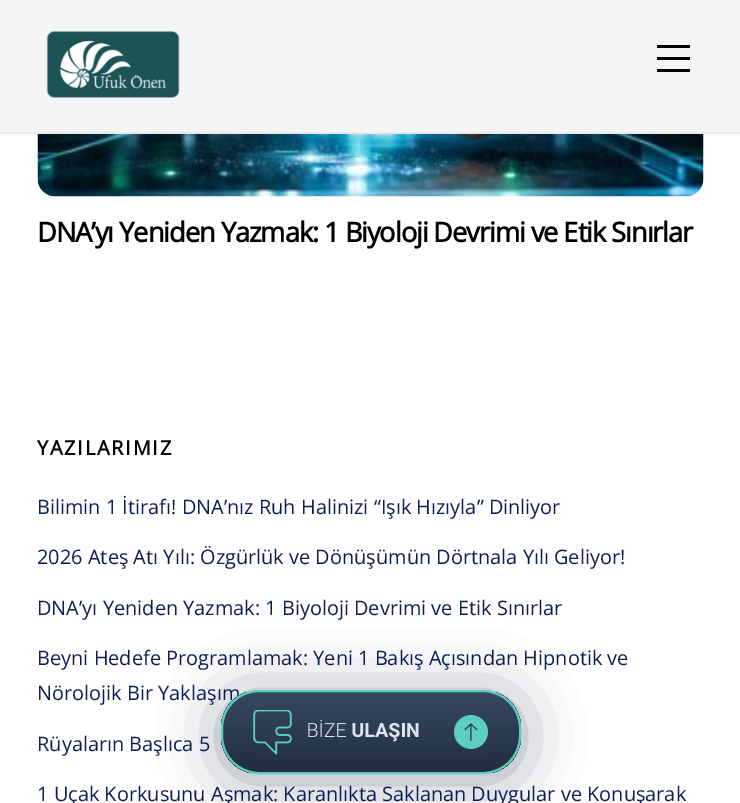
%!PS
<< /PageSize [740 803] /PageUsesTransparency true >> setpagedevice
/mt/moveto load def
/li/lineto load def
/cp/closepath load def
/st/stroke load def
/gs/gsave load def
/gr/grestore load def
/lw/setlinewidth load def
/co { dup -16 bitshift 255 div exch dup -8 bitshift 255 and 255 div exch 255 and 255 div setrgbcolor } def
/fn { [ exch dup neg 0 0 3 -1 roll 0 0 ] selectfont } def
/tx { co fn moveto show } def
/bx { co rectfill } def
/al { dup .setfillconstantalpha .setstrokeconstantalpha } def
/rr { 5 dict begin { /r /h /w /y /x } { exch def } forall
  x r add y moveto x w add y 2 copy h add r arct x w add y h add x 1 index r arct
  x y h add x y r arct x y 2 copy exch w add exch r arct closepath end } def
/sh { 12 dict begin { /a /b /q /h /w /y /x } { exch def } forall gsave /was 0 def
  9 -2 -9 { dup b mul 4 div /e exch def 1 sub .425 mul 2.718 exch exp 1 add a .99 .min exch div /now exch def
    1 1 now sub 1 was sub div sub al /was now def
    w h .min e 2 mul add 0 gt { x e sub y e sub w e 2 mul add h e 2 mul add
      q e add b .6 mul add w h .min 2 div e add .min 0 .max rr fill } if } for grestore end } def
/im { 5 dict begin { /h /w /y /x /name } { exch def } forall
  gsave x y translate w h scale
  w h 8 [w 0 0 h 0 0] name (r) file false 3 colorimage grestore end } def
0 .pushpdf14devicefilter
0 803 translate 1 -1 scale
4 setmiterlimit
0 0 740 803 16#FFFFFF bx
0 0 740 132 16#F5F5F5 bx
0 132 740 2 16#E9E9E9 bx
(media/1.raw) 46 31 134 67 im
657 69 33 3 16#000000 bx
657 45 33 3 16#000000 bx
657 57 33 3 16#000000 bx
(media/2.raw) 37 134 667 63 im
16#36485F co
221 695 300 84 38 30 .5 sh
/OpenSans-Bold 27.3 fn
16#000000 co
37 242 mt -1.1 0 (DNA’yı Yeniden Yazmak: 1 Biyoloji Devrimi ve Etik Sınırlar) ashow
/OpenSans-Bold 19.95 fn
37 455 mt 1.75 0 (YAZILARIMIZ) ashow
(Bilimin 1 İtirafı! DNA’nız Ruh Halinizi “Işık Hızıyla” Dinliyor) 37 514 /OpenSans-Regular 19.95 16#0D1D56 tx
(2026 Ateş Atı Yılı: Özgürlük ve Dönüşümün Dörtnala Yılı Geliyor!) 37 564 /OpenSans-Regular 19.95 16#0D1D56 tx
(DNA’yı Yeniden Yazmak: 1 Biyoloji Devrimi ve Etik Sınırlar) 37 615 /OpenSans-Regular 19.95 16#0D1D56 tx
(Beyni Hedefe Programlamak: Yeni 1 Bakış Açısından Hipnotik ve) 37 665 /OpenSans-Regular 19.95 16#0D1D56 tx
(Nörolojik Bir Yaklaşım) 37 700 /OpenSans-Regular 19.95 16#0D1D56 tx
(Rüyaların Başlıca 5) 37 751 /OpenSans-Regular 19.95 16#0D1D56 tx
(1 Uçak Korkusunu Aşmak: Karanlıkta Saklanan Duygular ve Konuşarak) 37 801 /OpenSans-Regular 19.95 16#0D1D56 tx
gs
221 690 300 84 38 rr clip newpath
gs 221 692 mt 521 692 li 521 773 li 221 773 li cp clip newpath
<< /ShadingType 2 /ColorSpace /DeviceRGB /Coords [371 692 371 773] /Extend [true true] /Function << /FunctionType 2 /Domain [0 1] /C0 [.216 .286 .376] /C1 [.129 .176 .247] /N 1 >> >> shfill gr
gr
16#5CCEBF co
2 lw
222 691 298 82 37 rr st
(media/3.raw) 253 710 235 45 im
.poppdf14devicefilter showpage
